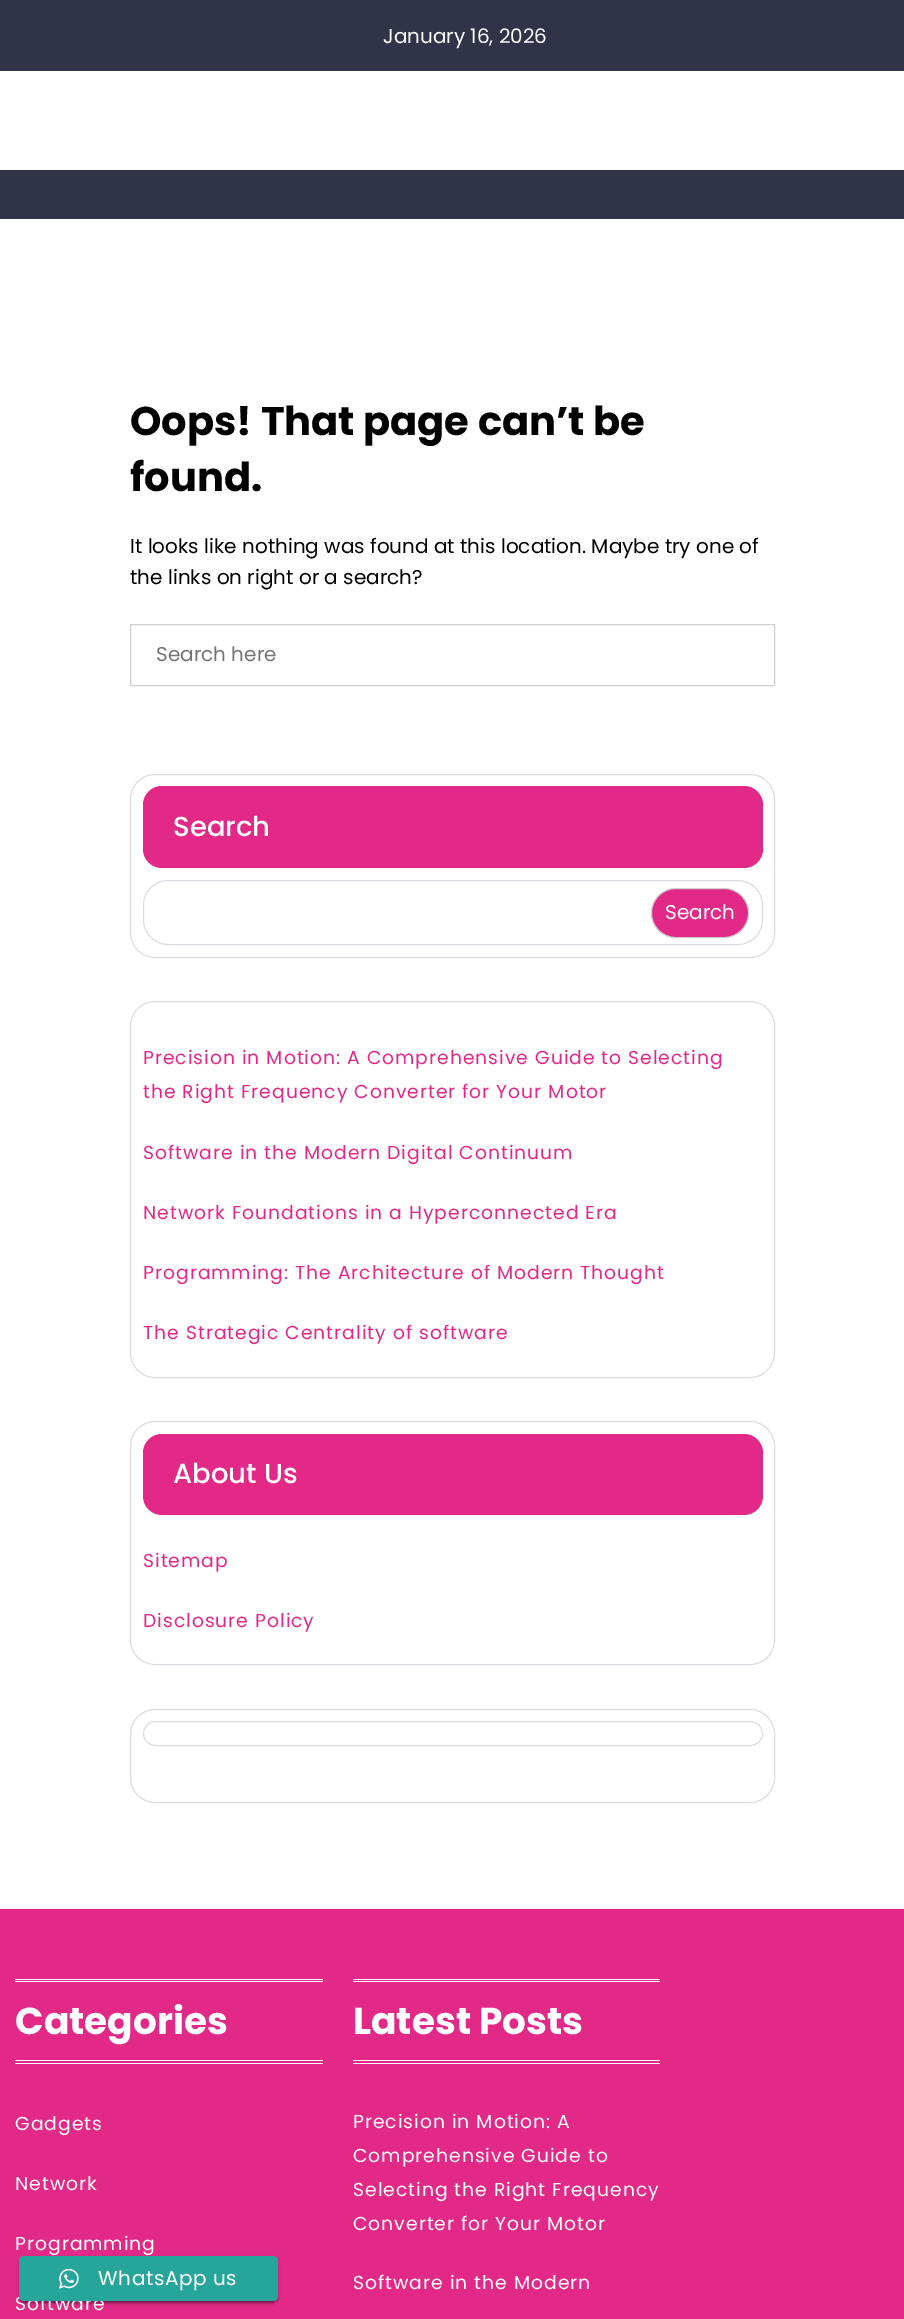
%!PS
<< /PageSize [904 2319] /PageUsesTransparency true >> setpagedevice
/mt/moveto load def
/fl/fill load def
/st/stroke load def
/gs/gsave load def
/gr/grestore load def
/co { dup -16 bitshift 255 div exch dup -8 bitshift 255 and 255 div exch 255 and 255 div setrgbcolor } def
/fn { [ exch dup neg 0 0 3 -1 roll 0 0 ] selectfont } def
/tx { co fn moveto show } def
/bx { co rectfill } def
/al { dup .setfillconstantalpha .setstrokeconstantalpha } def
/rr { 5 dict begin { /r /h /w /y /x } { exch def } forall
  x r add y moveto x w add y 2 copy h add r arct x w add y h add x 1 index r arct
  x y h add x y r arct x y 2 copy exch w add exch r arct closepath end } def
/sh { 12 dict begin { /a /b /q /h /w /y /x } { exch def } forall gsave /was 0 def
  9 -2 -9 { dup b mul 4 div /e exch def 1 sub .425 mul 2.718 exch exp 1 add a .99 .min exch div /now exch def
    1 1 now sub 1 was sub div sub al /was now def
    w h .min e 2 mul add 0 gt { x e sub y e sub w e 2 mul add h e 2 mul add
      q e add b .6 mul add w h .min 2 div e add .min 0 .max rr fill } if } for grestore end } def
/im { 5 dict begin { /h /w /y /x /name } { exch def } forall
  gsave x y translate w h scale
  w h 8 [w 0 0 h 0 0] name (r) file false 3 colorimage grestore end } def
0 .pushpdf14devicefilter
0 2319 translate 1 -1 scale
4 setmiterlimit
0 0 904 2319 16#FFFFFF bx
0 0 904 71 16#313349 bx
0 170 904 49 16#313349 bx
16#D0D0D0 co
130.5 624.5 644 61 rectstroke
16#DADEE2 co
130.5 774.5 644 183 24.5 rr st
16#E32988 co
143 786 620 82 19 rr fl
16#DADEE2 co
143.5 880.5 619 64 24.5 rr st
16#E32988 co
651.5 888.5 97 49 24.5 rr gs fl gr
16#CCCCCC co
st
16#DADEE2 co
130.5 1001.5 644 376 24.5 rr st
130.5 1421.5 644 243 24.5 rr st
16#E32988 co
143 1434 620 81 19 rr fl
16#DADEE2 co
130.5 1709.5 644 93 24.5 rr st
143.5 1721.5 619 24 12 rr st
0 1909 904 410 16#E32988 bx
15 1979 308 1 16#FFFFFF bx
15 1981 308 1 16#FFFFFF bx
15 2060 308 1 16#FFFFFF bx
15 2063 308 1 16#FFFFFF bx
353 1979 307 1 16#FFFFFF bx
353 1981 307 1 16#FFFFFF bx
353 2060 307 1 16#FFFFFF bx
353 2063 307 1 16#FFFFFF bx
16#000000 co
21 2263 254 40 2.5 .5 .2 sh
19 2258 259 45 5 3 .12 sh
19 2259 259 45 5 1 .14 sh
(January 16, 2026) 383 43 /Poppins-Regular 20 16#FFFEFE tx
(Oops! That page can’t be) 130 435 /Poppins-Bold 40 16#010101 tx
(found.) 130 491 /Poppins-Bold 40 16#010101 tx
(It looks like nothing was found at this location. Maybe try one of) 130 553 /Poppins-Regular 20 16#010101 tx
(the links on right or a search?) 130 584 /Poppins-Regular 20 16#010101 tx
(Search here) 156 661 /Poppins-Regular 20 16#757575 tx
(Search) 173 836 /Poppins-Medium 27.5 16#FFFEFE tx
(Search) 665 919 /Poppins-Regular 20 16#FFFEFE tx
/Poppins-Regular 18.75 fn
16#E32988 co
143 1064 mt 1 0 (Precision in Motion: A Comprehensive Guide to Selecting) ashow
143 1098 mt 1 0 (the Right Frequency Converter for Your Motor) ashow
143 1159 mt 1 0 (Software in the Modern Digital Continuum) ashow
143 1219 mt 1 0 (Network Foundations in a Hyperconnected Era) ashow
143 1279 mt 1 0 (Programming: The Architecture of Modern Thought) ashow
143 1339 mt 1 0 (The Strategic Centrality of software) ashow
(About Us) 173 1483 /Poppins-Medium 27.5 16#FFFEFE tx
/Poppins-Regular 18.75 fn
16#E32988 co
143 1567 mt 1 0 (Sitemap) ashow
143 1627 mt 1 0 (Disclosure Policy) ashow
(Categories) 15 2034 /Poppins-Bold 37.5 16#FFFEFE tx
/Poppins-Regular 18.75 fn
15 2130 mt 1 0 (Gadgets) ashow
15 2190 mt 1 0 (Network) ashow
15 2250 mt 1 0 (Programming) ashow
15 2310 mt 1 0 (Software) ashow
(Latest Posts) 353 2034 /Poppins-Bold 37.5 16#FFFEFE tx
/Poppins-Regular 18.75 fn
353 2128 mt 1 0 (Precision in Motion: A) ashow
353 2162 mt 1 0 (Comprehensive Guide to) ashow
353 2196 mt 1 0 (Selecting the Right Frequency) ashow
353 2230 mt 1 0 (Converter for Your Motor) ashow
353 2289 mt 1 0 (Software in the Modern) ashow
16#26A69A co
19 2256 259 45 5 rr fl
(media/1.raw) 59 2269 20 20 im
/Poppins-Regular 20 fn
16#FFFEFE co
98 2285 mt .6 0 (WhatsApp us) ashow
.poppdf14devicefilter showpage
